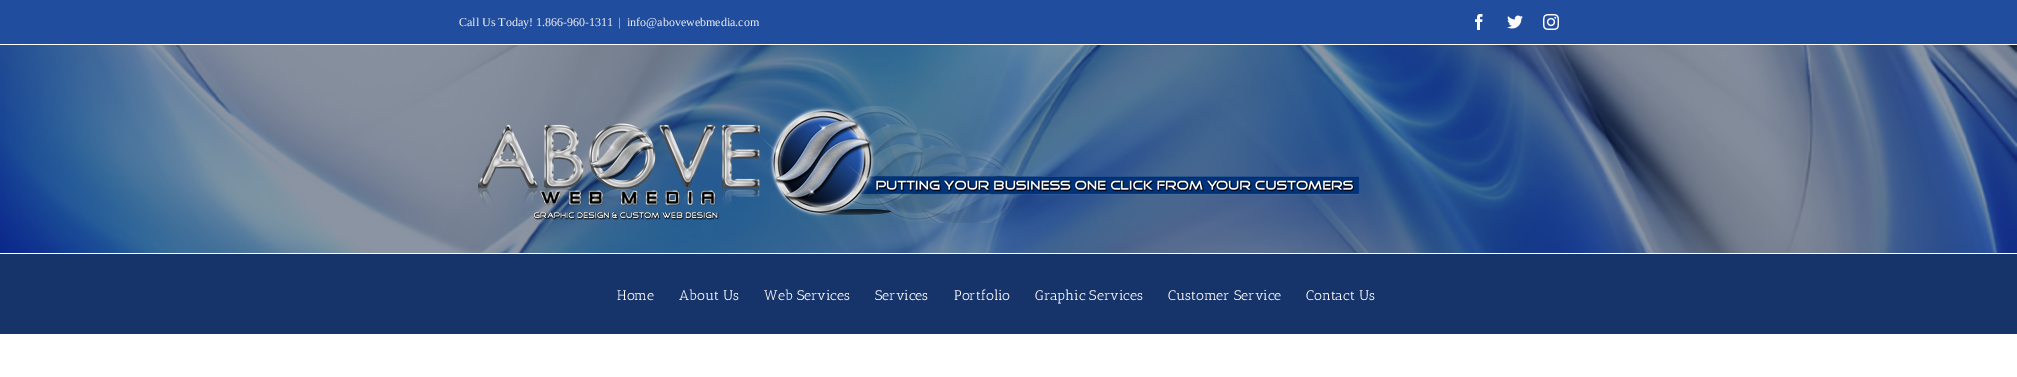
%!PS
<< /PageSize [2017 377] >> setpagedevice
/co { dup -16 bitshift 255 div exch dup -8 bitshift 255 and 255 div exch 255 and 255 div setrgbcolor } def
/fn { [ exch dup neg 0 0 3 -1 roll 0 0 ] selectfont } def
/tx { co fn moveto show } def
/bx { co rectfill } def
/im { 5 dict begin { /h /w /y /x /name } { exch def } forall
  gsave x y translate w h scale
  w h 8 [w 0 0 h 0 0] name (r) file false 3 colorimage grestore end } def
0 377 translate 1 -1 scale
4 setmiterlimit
0 0 2017 377 16#FFFFFF bx
0 0 2017 44 16#204D9E bx
(media/1.raw) 1475 14 8 16 im
(media/2.raw) 1507 15 16 14 im
(media/3.raw) 1543 14 16 16 im
0 45 2017 208 16#0C1F3F bx
(media/4.raw) 0 45 2017 208 im
(media/5.raw) 477 106 882 117 im
0 254 2017 80 16#16346A bx
(Call Us Today! 1.866-960-1311) 459 26 /LiberationSerif-Regular 12 16#EFEFEF tx
(|) 618 26 /LiberationSerif-Regular 12 16#EFEFEF tx
(info@abovewebmedia.com) 627 26 /LiberationSerif-Regular 12 16#EFEFEF tx
(Home) 617 300 /AnticSlab-Regular 14 16#FFFFFF tx
(About Us) 679 300 /AnticSlab-Regular 14 16#FFFFFF tx
(Web Services) 764 300 /AnticSlab-Regular 14 16#FFFFFF tx
(Services) 875 300 /AnticSlab-Regular 14 16#FFFFFF tx
(Portfolio) 954 300 /AnticSlab-Regular 14 16#FFFFFF tx
(Graphic Services) 1035 300 /AnticSlab-Regular 14 16#FFFFFF tx
(Customer Service) 1168 300 /AnticSlab-Regular 14 16#FFFFFF tx
(Contact Us) 1306 300 /AnticSlab-Regular 14 16#FFFFFF tx
showpage
